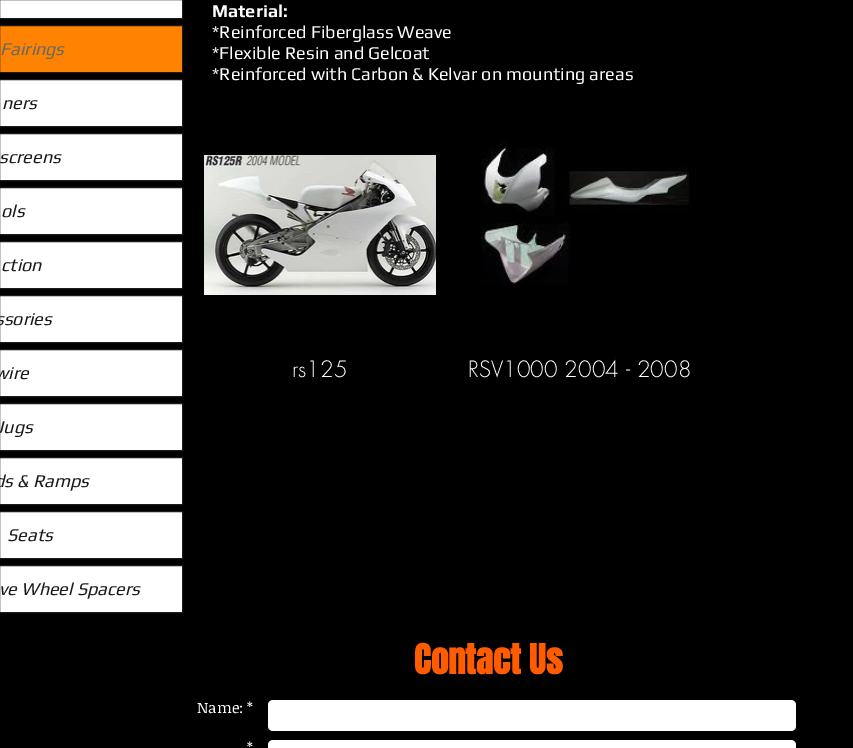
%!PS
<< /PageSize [853 748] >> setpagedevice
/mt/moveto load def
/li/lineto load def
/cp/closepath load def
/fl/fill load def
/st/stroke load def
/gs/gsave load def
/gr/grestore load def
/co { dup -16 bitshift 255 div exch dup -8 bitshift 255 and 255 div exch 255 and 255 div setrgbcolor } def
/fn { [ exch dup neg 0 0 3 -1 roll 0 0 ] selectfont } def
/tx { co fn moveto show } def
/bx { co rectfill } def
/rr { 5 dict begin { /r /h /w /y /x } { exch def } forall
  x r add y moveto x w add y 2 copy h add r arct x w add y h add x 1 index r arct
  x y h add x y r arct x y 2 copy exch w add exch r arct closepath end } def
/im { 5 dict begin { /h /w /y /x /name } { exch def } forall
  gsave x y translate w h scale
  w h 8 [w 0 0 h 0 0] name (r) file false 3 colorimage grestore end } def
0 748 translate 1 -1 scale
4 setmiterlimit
0 0 853 748 16#000000 bx
16#FFFFFF co
-.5 -.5 mt 182.5 -.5 li 182.5 18.5 li -.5 18.5 li cp gs fl gr
16#1C1B1B co
st
16#FF8300 co
-.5 25.5 mt 182.5 25.5 li 182.5 72.5 li -.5 72.5 li cp gs fl gr
16#1C1B1B co
st
16#FFFFFF co
-.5 79.5 mt 182.5 79.5 li 182.5 126.5 li -.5 126.5 li cp gs fl gr
16#1C1B1B co
st
16#FFFFFF co
-.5 133.5 mt 182.5 133.5 li 182.5 180.5 li -.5 180.5 li cp gs fl gr
16#1C1B1B co
st
16#FFFFFF co
-.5 187.5 mt 182.5 187.5 li 182.5 234.5 li -.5 234.5 li cp gs fl gr
16#1C1B1B co
st
16#FFFFFF co
-.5 241.5 mt 182.5 241.5 li 182.5 288.5 li -.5 288.5 li cp gs fl gr
16#1C1B1B co
st
16#FFFFFF co
-.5 295.5 mt 182.5 295.5 li 182.5 342.5 li -.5 342.5 li cp gs fl gr
16#1C1B1B co
st
16#FFFFFF co
-.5 349.5 mt 182.5 349.5 li 182.5 396.5 li -.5 396.5 li cp gs fl gr
16#1C1B1B co
st
16#FFFFFF co
-.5 403.5 mt 182.5 403.5 li 182.5 450.5 li -.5 450.5 li cp gs fl gr
16#1C1B1B co
st
16#FFFFFF co
-.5 457.5 mt 182.5 457.5 li 182.5 504.5 li -.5 504.5 li cp gs fl gr
16#1C1B1B co
st
16#FFFFFF co
-.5 511.5 mt 182.5 511.5 li 182.5 558.5 li -.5 558.5 li cp gs fl gr
16#1C1B1B co
st
16#FFFFFF co
-.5 565.5 mt 182.5 565.5 li 182.5 612.5 li -.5 612.5 li cp gs fl gr
16#1C1B1B co
st
(media/1.raw) 204 155 232 140 im
(media/2.raw) 463 141 233 168 im
16#FFFFFF co
268 700 528 31 5 rr fl
268 740 528 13 5 rr fl
(Fairings) 0 55 /Play-Italic 18 16#696868 tx
(ners) 2 109 /Play-Italic 18 16#1C1B1B tx
(screens) -1 163 /Play-Italic 18 16#1C1B1B tx
(ols) 1 217 /Play-Italic 18 16#1C1B1B tx
(ction) 1 271 /Play-Italic 18 16#1C1B1B tx
(ssories) -5 325 /Play-Italic 18 16#1C1B1B tx
(wire) -6 379 /Play-Italic 18 16#1C1B1B tx
(Jugs) -4 433 /Play-Italic 18 16#1C1B1B tx
(ds & Ramps) -6 487 /Play-Italic 18 16#1C1B1B tx
(Seats) 7 541 /Play-Italic 18 16#1C1B1B tx
(ve Wheel Spacers) -1 595 /Play-Italic 18 16#1C1B1B tx
(Material:) 212 17 /Play-Bold 18 16#FFFFFF tx
(*Reinforced Fiberglass Weave) 212 38 /Play-Regular 18 16#FFFFFF tx
(*Flexible Resin and Gelcoat) 212 59 /Play-Regular 18 16#FFFFFF tx
(*Reinforced with Carbon & Kelvar on mounting areas) 212 80 /Play-Regular 18 16#FFFFFF tx
(rs125) 292 377 /futura-Light 22 16#FFFFFF tx
(RSV1000 2004 - 2008) 468 377 /futura-Light 22 16#FFFFFF tx
(Contact Us) 414 674 /Anton-Bold 35 16#FF5C00 tx
(Name: *) 197 713 /NoticiaText-Regular 15 16#FFFFFF tx
(*) 247 753 /NoticiaText-Regular 15 16#FFFFFF tx
showpage
